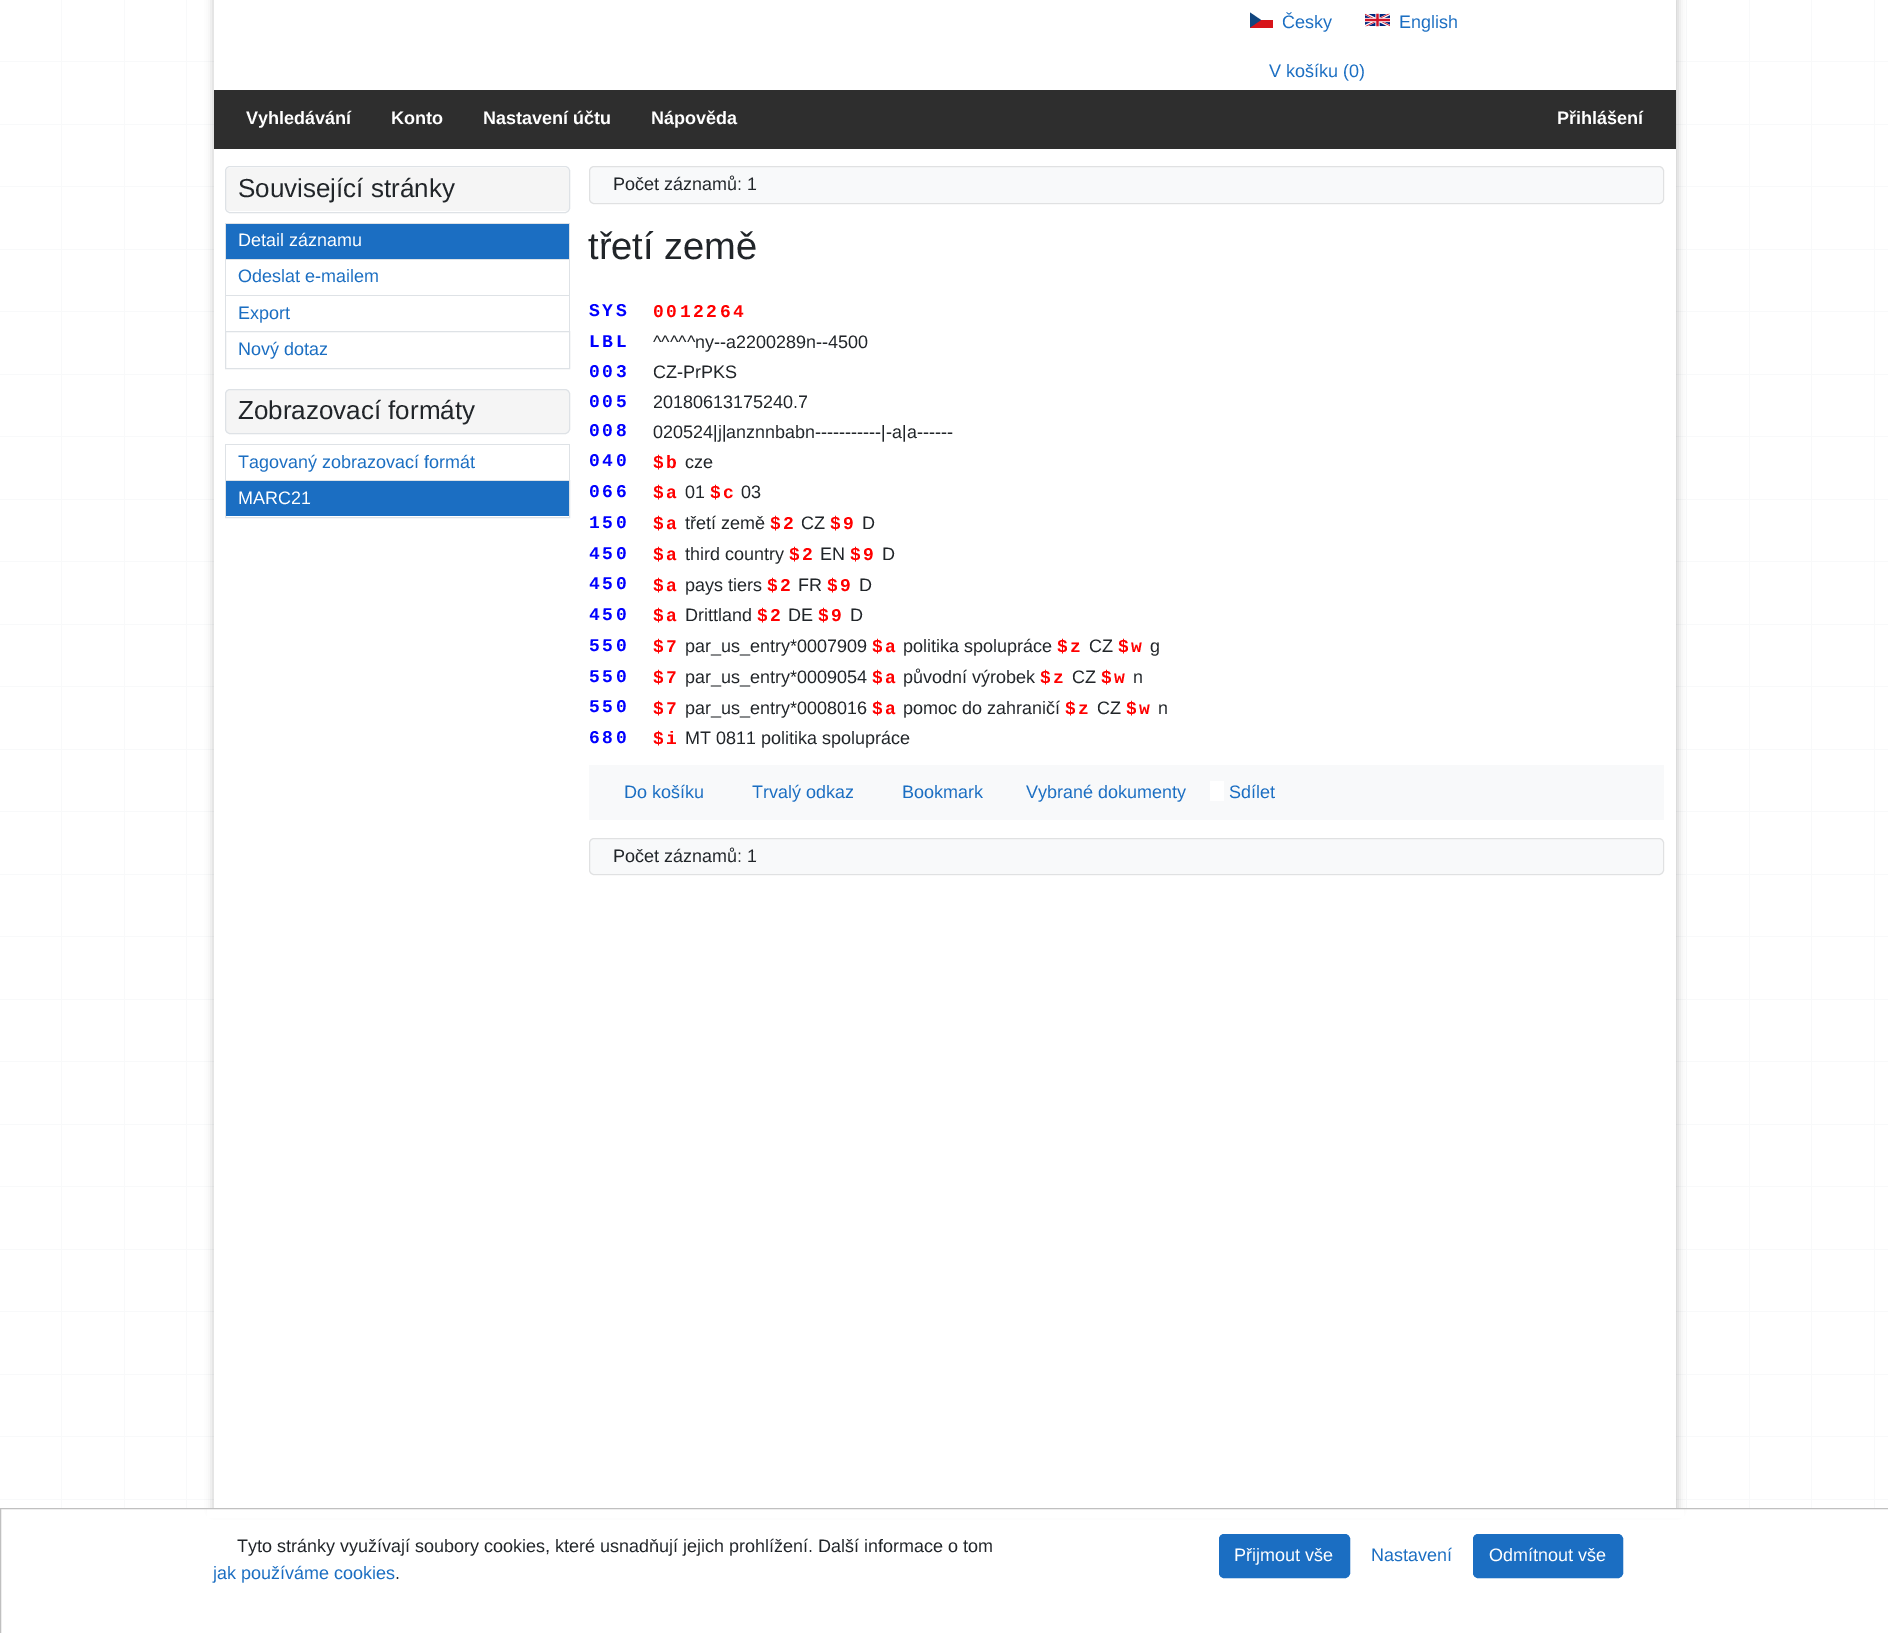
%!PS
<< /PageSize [1888 1633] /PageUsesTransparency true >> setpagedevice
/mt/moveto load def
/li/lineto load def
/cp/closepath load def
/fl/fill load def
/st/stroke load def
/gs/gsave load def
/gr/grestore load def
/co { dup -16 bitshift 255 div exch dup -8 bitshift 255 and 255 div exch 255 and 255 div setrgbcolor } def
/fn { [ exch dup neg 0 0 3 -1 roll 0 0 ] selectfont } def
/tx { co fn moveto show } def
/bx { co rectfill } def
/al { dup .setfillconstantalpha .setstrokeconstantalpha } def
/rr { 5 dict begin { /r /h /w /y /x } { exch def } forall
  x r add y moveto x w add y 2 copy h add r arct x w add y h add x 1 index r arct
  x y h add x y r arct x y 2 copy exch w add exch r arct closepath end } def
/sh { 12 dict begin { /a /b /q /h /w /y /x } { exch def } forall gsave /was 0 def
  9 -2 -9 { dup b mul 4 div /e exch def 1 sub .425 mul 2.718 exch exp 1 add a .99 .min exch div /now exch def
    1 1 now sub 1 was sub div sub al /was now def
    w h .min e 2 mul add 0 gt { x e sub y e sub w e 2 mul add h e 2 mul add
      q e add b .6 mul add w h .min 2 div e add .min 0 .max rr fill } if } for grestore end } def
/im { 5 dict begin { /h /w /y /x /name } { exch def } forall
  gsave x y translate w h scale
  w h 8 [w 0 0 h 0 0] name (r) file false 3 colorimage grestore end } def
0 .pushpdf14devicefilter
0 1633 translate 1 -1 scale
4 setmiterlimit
0 0 1888 1633 16#FFFFFF bx
(media/1.raw) 61 0 1814 1508 im
(media/2.raw) 0 61 1888 1439 im
16#000000 co
213 -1 1465 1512 0 4 .2 sh
214 0 1462 1508 16#FFFFFF bx
1250 20 23 8 16#D7141A bx
16#11457E co
1261 20 mt 1250 12.5 li 1250 27.5 li cp fl
(media/3.raw) 1365 13 25 14 im
214 90 1462 59 16#2E2E2E bx
16#F5F5F5 co
226 168 343 43 4 rr fl
16#DEE2E6 co
225.5 166.5 344 46 4.5 rr st
225 223 345 1 16#DEE2E6 bx
569 223 1 36 16#DEE2E6 bx
225 223 1 36 16#DEE2E6 bx
226 224 343 35 16#1B6EC2 bx
225 259 345 1 16#DEE2E6 bx
569 259 1 36 16#DEE2E6 bx
225 259 1 36 16#DEE2E6 bx
225 295 345 1 16#DEE2E6 bx
569 295 1 36 16#DEE2E6 bx
225 295 1 36 16#DEE2E6 bx
225.5 331.5 344 37 rectstroke
16#F5F5F5 co
225.5 389.5 344 44 4.5 rr gs fl gr
16#DEE2E6 co
st
225 444 345 1 16#DEE2E6 bx
569 444 1 36 16#DEE2E6 bx
225 444 1 36 16#DEE2E6 bx
225.5 480.5 344 37 rectstroke
226 481 343 35 16#1B6EC2 bx
16#F8F9FA co
589 166 1075 38 5 rr fl
0.12 al
16#333333 co
589.5 166.5 1074 37 4.5 rr st
1 al
589 765 1075 55 16#F8F9FA bx
1210 781 14 20 16#FFFFFF bx
16#F8F9FA co
589 838 1075 37 5 rr fl
0.12 al
16#333333 co
589.5 838.5 1074 36 4.5 rr st
1 al
207 1509 1477 9 16#FFFFFF bx
16#C0C0C0 co
.5 1508.5 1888 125 rectstroke
16#1B6EC2 co
1219.5 1534.5 130 43 4.5 rr gs fl gr
st
1473.5 1534.5 149 43 4.5 rr gs fl gr
st
(Česky) 1282 28 /LiberationSans-Regular 18 16#1B6EC2 tx
(English) 1399 28 /LiberationSans-Regular 18 16#1B6EC2 tx
(V košíku \(0\)) 1269 77 /LiberationSans-Regular 18 16#1B6EC2 tx
(Vyhledávání) 246 124 /LiberationSans-Bold 18 16#FFFFFF tx
(Konto) 391 124 /LiberationSans-Bold 18 16#FFFFFF tx
(Nastavení účtu) 483 124 /LiberationSans-Bold 18 16#FFFFFF tx
(Nápověda) 651 124 /LiberationSans-Bold 18 16#FFFFFF tx
(Přihlášení) 1557 124 /LiberationSans-Bold 18 16#FFFFFF tx
(Související stránky) 238 197 /LiberationSans-Regular 26 16#212529 tx
(Detail záznamu) 238 246 /LiberationSans-Regular 18 16#FFFFFF tx
(Odeslat e-mailem) 238 282 /LiberationSans-Regular 18 16#1B6EC2 tx
(Export) 238 319 /LiberationSans-Regular 18 16#1B6EC2 tx
(Nový dotaz) 238 355 /LiberationSans-Regular 18 16#1B6EC2 tx
(Zobrazovací formáty) 238 419 /LiberationSans-Regular 26 16#212529 tx
(Tagovaný zobrazovací formát) 238 468 /LiberationSans-Regular 18 16#1B6EC2 tx
(MARC21) 238 504 /LiberationSans-Regular 18 16#FFFFFF tx
(Počet záznamů: 1) 613 190 /LiberationSans-Regular 18 16#212529 tx
(třetí země) 588 259 /LiberationSans-Regular 38 16#212529 tx
/LiberationMono-Bold 18 fn
16#0000FF co
589 316 mt 2.5 0 (SYS) ashow
16#FF0000 co
653 317 mt 2.5 0 (0012264) ashow
16#0000FF co
589 347 mt 2.5 0 (LBL) ashow
(^^^^^ny--a2200289n--4500) 653 348 /LiberationSans-Regular 18 16#212529 tx
/LiberationMono-Bold 18 fn
16#0000FF co
589 377 mt 2.5 0 (003) ashow
(CZ-PrPKS) 653 378 /LiberationSans-Regular 18 16#212529 tx
/LiberationMono-Bold 18 fn
16#0000FF co
589 407 mt 2.5 0 (005) ashow
(20180613175240.7) 653 408 /LiberationSans-Regular 18 16#212529 tx
/LiberationMono-Bold 18 fn
16#0000FF co
589 436 mt 2.5 0 (008) ashow
(020524|j|anznnbabn-----------|-a|a------) 653 438 /LiberationSans-Regular 18 16#212529 tx
/LiberationMono-Bold 18 fn
16#0000FF co
589 466 mt 2.5 0 (040) ashow
16#FF0000 co
653 468 mt 2.5 0 ($b) ashow
(cze) 685 468 /LiberationSans-Regular 18 16#212529 tx
/LiberationMono-Bold 18 fn
16#0000FF co
589 497 mt 2.5 0 (066) ashow
16#FF0000 co
653 498 mt 2.5 0 ($a) ashow
(01) 685 498 /LiberationSans-Regular 18 16#212529 tx
/LiberationMono-Bold 18 fn
16#FF0000 co
710 498 mt 2.5 0 ($c) ashow
(03) 741 498 /LiberationSans-Regular 18 16#212529 tx
/LiberationMono-Bold 18 fn
16#0000FF co
589 528 mt 2.5 0 (150) ashow
16#FF0000 co
653 529 mt 2.5 0 ($a) ashow
(třetí země) 685 529 /LiberationSans-Regular 18 16#212529 tx
/LiberationMono-Bold 18 fn
16#FF0000 co
770 529 mt 2.5 0 ($2) ashow
(CZ) 801 529 /LiberationSans-Regular 18 16#212529 tx
/LiberationMono-Bold 18 fn
16#FF0000 co
830 529 mt 2.5 0 ($9) ashow
(D) 862 529 /LiberationSans-Regular 18 16#212529 tx
/LiberationMono-Bold 18 fn
16#0000FF co
589 559 mt 2.5 0 (450) ashow
16#FF0000 co
653 560 mt 2.5 0 ($a) ashow
(third country) 685 560 /LiberationSans-Regular 18 16#212529 tx
/LiberationMono-Bold 18 fn
16#FF0000 co
789 560 mt 2.5 0 ($2) ashow
(EN) 820 560 /LiberationSans-Regular 18 16#212529 tx
/LiberationMono-Bold 18 fn
16#FF0000 co
850 560 mt 2.5 0 ($9) ashow
(D) 882 560 /LiberationSans-Regular 18 16#212529 tx
/LiberationMono-Bold 18 fn
16#0000FF co
589 589 mt 2.5 0 (450) ashow
16#FF0000 co
653 591 mt 2.5 0 ($a) ashow
(pays tiers) 685 591 /LiberationSans-Regular 18 16#212529 tx
/LiberationMono-Bold 18 fn
16#FF0000 co
767 591 mt 2.5 0 ($2) ashow
(FR) 798 591 /LiberationSans-Regular 18 16#212529 tx
/LiberationMono-Bold 18 fn
16#FF0000 co
827 591 mt 2.5 0 ($9) ashow
(D) 859 591 /LiberationSans-Regular 18 16#212529 tx
/LiberationMono-Bold 18 fn
16#0000FF co
589 620 mt 2.5 0 (450) ashow
16#FF0000 co
653 621 mt 2.5 0 ($a) ashow
(Drittland) 685 621 /LiberationSans-Regular 18 16#212529 tx
/LiberationMono-Bold 18 fn
16#FF0000 co
757 621 mt 2.5 0 ($2) ashow
(DE) 788 621 /LiberationSans-Regular 18 16#212529 tx
/LiberationMono-Bold 18 fn
16#FF0000 co
818 621 mt 2.5 0 ($9) ashow
(D) 850 621 /LiberationSans-Regular 18 16#212529 tx
/LiberationMono-Bold 18 fn
16#0000FF co
589 651 mt 2.5 0 (550) ashow
16#FF0000 co
653 652 mt 2.5 0 ($7) ashow
(par_us_entry*0007909) 685 652 /LiberationSans-Regular 18 16#212529 tx
/LiberationMono-Bold 18 fn
16#FF0000 co
872 652 mt 2.5 0 ($a) ashow
(politika spolupráce) 903 652 /LiberationSans-Regular 18 16#212529 tx
/LiberationMono-Bold 18 fn
16#FF0000 co
1057 652 mt 2.5 0 ($z) ashow
(CZ) 1089 652 /LiberationSans-Regular 18 16#212529 tx
/LiberationMono-Bold 18 fn
16#FF0000 co
1118 652 mt 2.5 0 ($w) ashow
(g) 1150 652 /LiberationSans-Regular 18 16#212529 tx
/LiberationMono-Bold 18 fn
16#0000FF co
589 682 mt 2.5 0 (550) ashow
16#FF0000 co
653 683 mt 2.5 0 ($7) ashow
(par_us_entry*0009054) 685 683 /LiberationSans-Regular 18 16#212529 tx
/LiberationMono-Bold 18 fn
16#FF0000 co
872 683 mt 2.5 0 ($a) ashow
(původní výrobek) 903 683 /LiberationSans-Regular 18 16#212529 tx
/LiberationMono-Bold 18 fn
16#FF0000 co
1040 683 mt 2.5 0 ($z) ashow
(CZ) 1072 683 /LiberationSans-Regular 18 16#212529 tx
/LiberationMono-Bold 18 fn
16#FF0000 co
1101 683 mt 2.5 0 ($w) ashow
(n) 1133 683 /LiberationSans-Regular 18 16#212529 tx
/LiberationMono-Bold 18 fn
16#0000FF co
589 712 mt 2.5 0 (550) ashow
16#FF0000 co
653 714 mt 2.5 0 ($7) ashow
(par_us_entry*0008016) 685 714 /LiberationSans-Regular 18 16#212529 tx
/LiberationMono-Bold 18 fn
16#FF0000 co
872 714 mt 2.5 0 ($a) ashow
(pomoc do zahraničí) 903 714 /LiberationSans-Regular 18 16#212529 tx
/LiberationMono-Bold 18 fn
16#FF0000 co
1065 714 mt 2.5 0 ($z) ashow
(CZ) 1097 714 /LiberationSans-Regular 18 16#212529 tx
/LiberationMono-Bold 18 fn
16#FF0000 co
1126 714 mt 2.5 0 ($w) ashow
(n) 1158 714 /LiberationSans-Regular 18 16#212529 tx
/LiberationMono-Bold 18 fn
16#0000FF co
589 743 mt 2.5 0 (680) ashow
16#FF0000 co
653 744 mt 2.5 0 ($i) ashow
(MT 0811 politika spolupráce) 685 744 /LiberationSans-Regular 18 16#212529 tx
(Do košíku) 624 798 /LiberationSans-Regular 18 16#1B6EC2 tx
(Trvalý odkaz) 752 798 /LiberationSans-Regular 18 16#1B6EC2 tx
(Bookmark) 902 798 /LiberationSans-Regular 18 16#1B6EC2 tx
(Vybrané dokumenty) 1026 798 /LiberationSans-Regular 18 16#1B6EC2 tx
(Sdílet) 1229 798 /LiberationSans-Regular 18 16#1B6EC2 tx
(Počet záznamů: 1) 613 862 /LiberationSans-Regular 18 16#212529 tx
(Tyto stránky využívají soubory cookies, které usnadňují jejich prohlížení. Další informace o tom) 237 1552 /LiberationSans-Regular 18 16#212529 tx
(jak používáme cookies) 213 1579 /LiberationSans-Regular 18 16#1B6EC2 tx
(.) 395 1579 /LiberationSans-Regular 18 16#212529 tx
(Přijmout vše) 1234 1561 /LiberationSans-Regular 18 16#FFFFFF tx
(Nastavení) 1371 1561 /LiberationSans-Regular 18 16#1B6EC2 tx
(Odmítnout vše) 1489 1561 /LiberationSans-Regular 18 16#FFFFFF tx
.poppdf14devicefilter showpage
